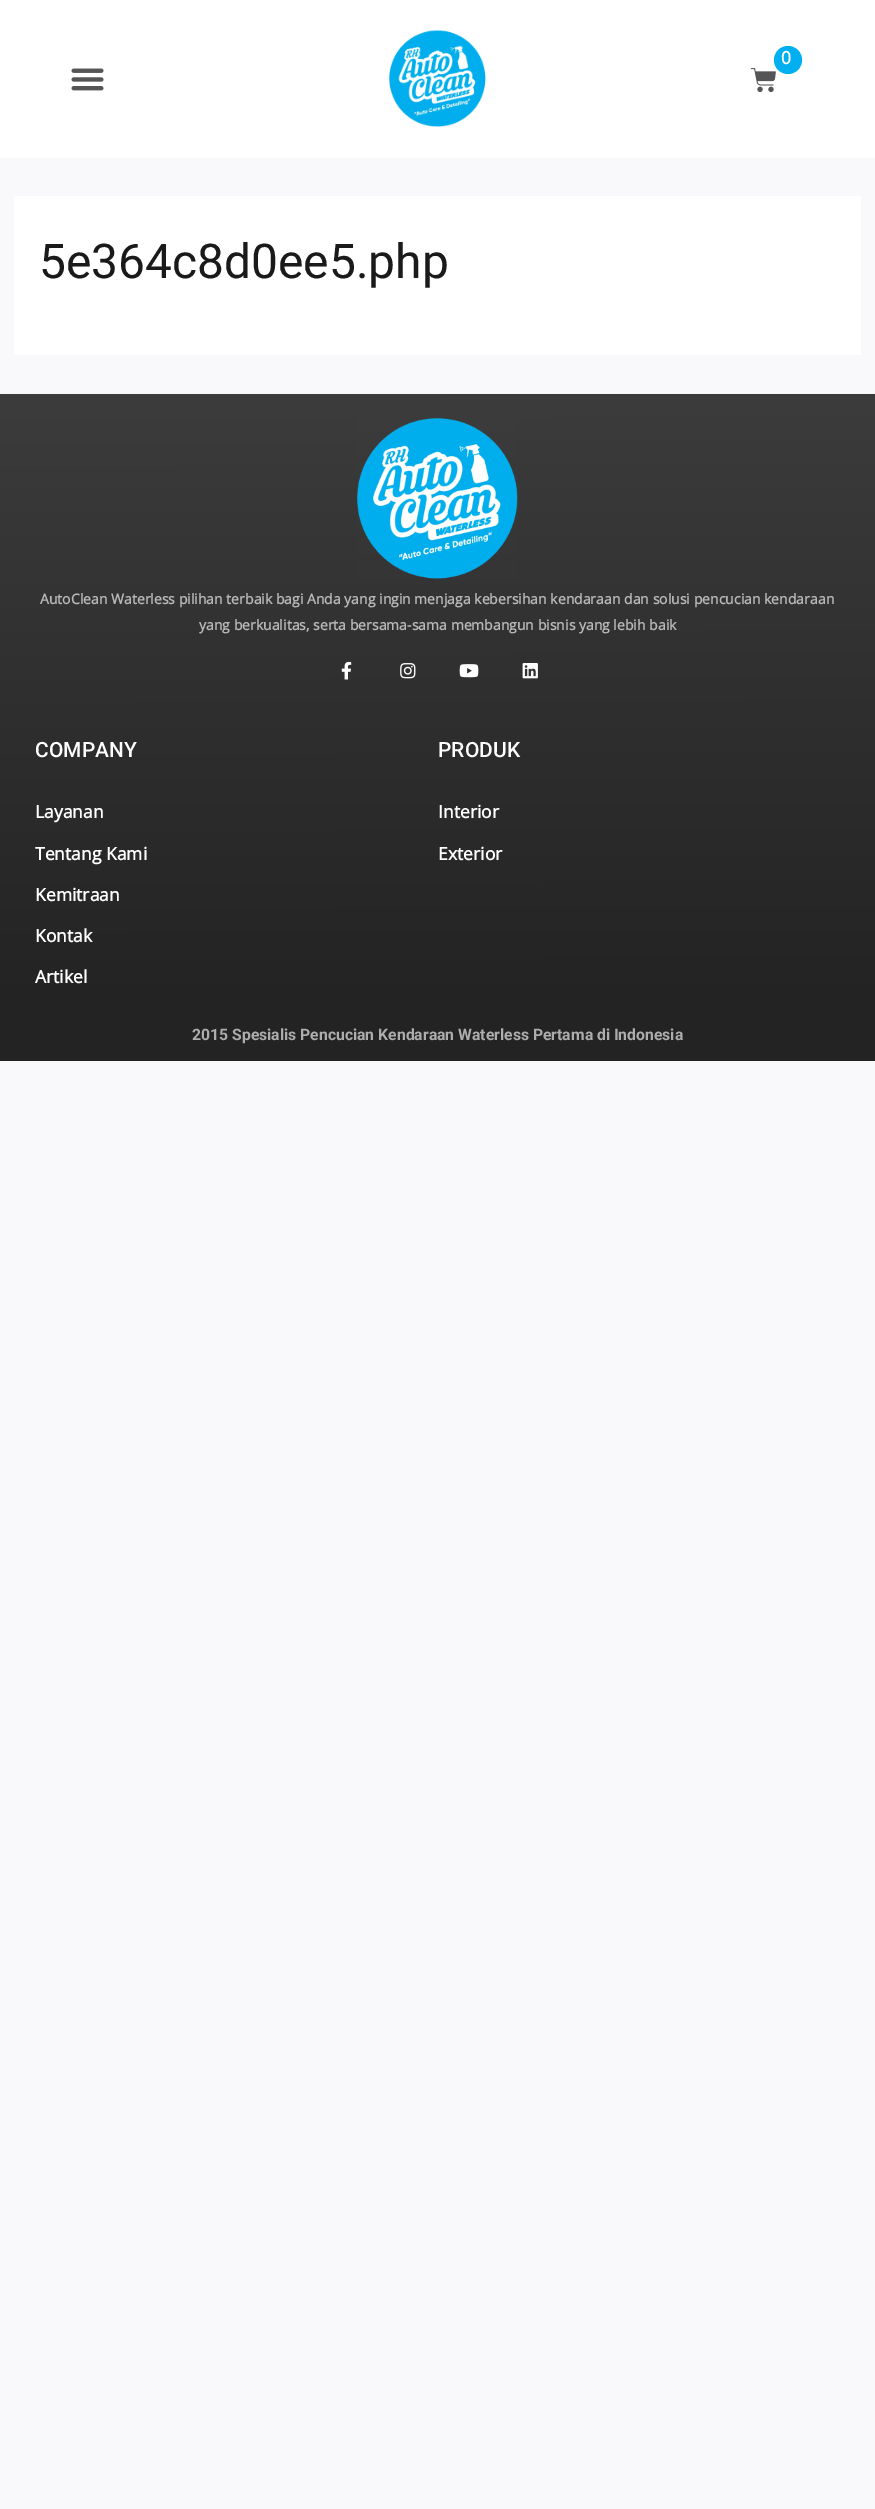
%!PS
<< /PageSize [875 2509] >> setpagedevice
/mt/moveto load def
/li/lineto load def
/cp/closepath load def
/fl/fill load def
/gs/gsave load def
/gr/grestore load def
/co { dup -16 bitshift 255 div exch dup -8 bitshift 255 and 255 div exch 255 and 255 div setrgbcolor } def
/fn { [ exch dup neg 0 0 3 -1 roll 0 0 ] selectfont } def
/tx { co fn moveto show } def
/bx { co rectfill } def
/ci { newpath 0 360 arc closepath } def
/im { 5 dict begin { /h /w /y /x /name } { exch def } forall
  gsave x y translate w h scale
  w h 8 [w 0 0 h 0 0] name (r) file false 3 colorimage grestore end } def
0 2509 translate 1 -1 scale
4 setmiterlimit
0 0 875 2509 16#F9F9FB bx
0 0 875 158 16#FFFFFF bx
(media/1.raw) 389 30 97 97 im
(media/2.raw) 750 68 26 25 im
16#00AFEF co
788 60 14 ci fl
(media/3.raw) 71 68 33 23 im
14 196 847 159 16#FFFFFF bx
gs 0 394 mt 875 394 li 875 1010 li 0 1010 li cp clip newpath
<< /ShadingType 2 /ColorSpace /DeviceRGB /Coords [437 394 438 1010] /Extend [true true] /Function << /FunctionType 2 /Domain [0 1] /C0 [.235 .235 .235] /C1 [.137 .137 .137] /N 1 >> >> shfill gr
(media/4.raw) 357 418 161 161 im
(media/5.raw) 341 661 11 19 im
(media/6.raw) 400 663 16 16 im
(media/7.raw) 459 664 20 14 im
(media/8.raw) 522 663 16 16 im
0 1010 875 51 16#232323 bx
/OpenSans-Bold 17.5 fn
16#FFFFFF co
781 64 mt 2 0 (0) ashow
(5e364c8d0ee5.php) 39 278 /Roboto-Regular 47.9 16#1A1A1A tx
(AutoClean Waterless pilihan terbaik bagi Anda yang ingin menjaga kebersihan kendaraan dan solusi pencucian kendaraan) 40 604 /OpenSans-Bold 14 16#B8B8B8 tx
(yang berkualitas, serta bersama-sama membangun bisnis yang lebih baik) 199 630 /OpenSans-Bold 14 16#B8B8B8 tx
(COMPANY) 35 757 /Roboto-Medium 21 16#FFFFFF tx
(Layanan) 35 818 /OpenSans-Bold 17.5 16#FFFFFF tx
(Tentang Kami) 35 860 /OpenSans-Bold 17.5 16#FFFFFF tx
(Kemitraan) 35 901 /OpenSans-Bold 17.5 16#FFFFFF tx
(Kontak) 35 942 /OpenSans-Bold 17.5 16#FFFFFF tx
(Artikel) 35 983 /OpenSans-Bold 17.5 16#FFFFFF tx
(PRODUK) 438 757 /Roboto-Medium 21 16#FFFFFF tx
(Interior) 438 818 /OpenSans-Bold 17.5 16#FFFFFF tx
(Exterior) 438 860 /OpenSans-Bold 17.5 16#FFFFFF tx
(2015 Spesialis Pencucian Kendaraan Waterless Pertama di Indonesia) 192 1040 /Roboto-Bold 15.75 16#ADADAD tx
showpage
